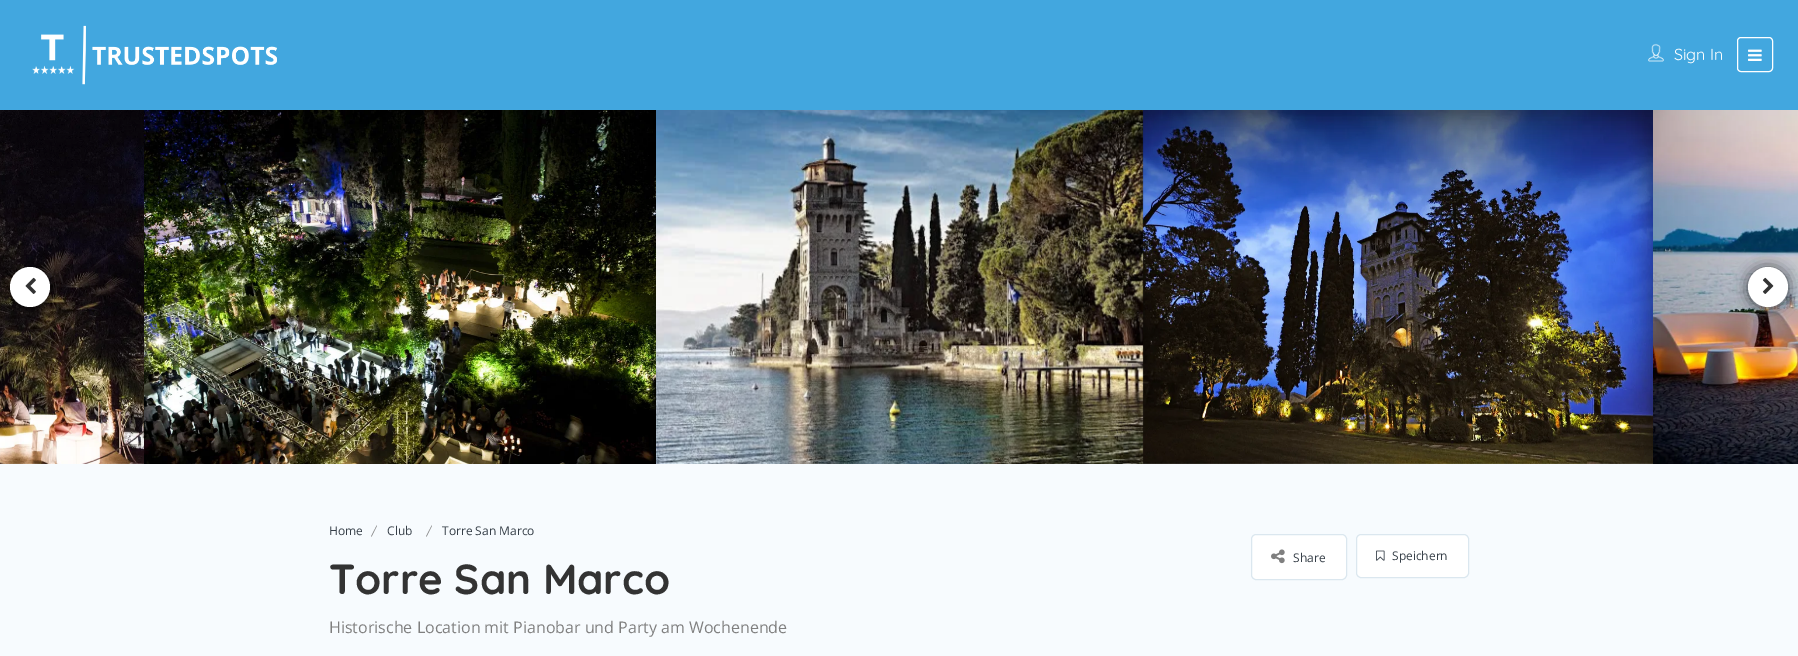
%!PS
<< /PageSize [1798 656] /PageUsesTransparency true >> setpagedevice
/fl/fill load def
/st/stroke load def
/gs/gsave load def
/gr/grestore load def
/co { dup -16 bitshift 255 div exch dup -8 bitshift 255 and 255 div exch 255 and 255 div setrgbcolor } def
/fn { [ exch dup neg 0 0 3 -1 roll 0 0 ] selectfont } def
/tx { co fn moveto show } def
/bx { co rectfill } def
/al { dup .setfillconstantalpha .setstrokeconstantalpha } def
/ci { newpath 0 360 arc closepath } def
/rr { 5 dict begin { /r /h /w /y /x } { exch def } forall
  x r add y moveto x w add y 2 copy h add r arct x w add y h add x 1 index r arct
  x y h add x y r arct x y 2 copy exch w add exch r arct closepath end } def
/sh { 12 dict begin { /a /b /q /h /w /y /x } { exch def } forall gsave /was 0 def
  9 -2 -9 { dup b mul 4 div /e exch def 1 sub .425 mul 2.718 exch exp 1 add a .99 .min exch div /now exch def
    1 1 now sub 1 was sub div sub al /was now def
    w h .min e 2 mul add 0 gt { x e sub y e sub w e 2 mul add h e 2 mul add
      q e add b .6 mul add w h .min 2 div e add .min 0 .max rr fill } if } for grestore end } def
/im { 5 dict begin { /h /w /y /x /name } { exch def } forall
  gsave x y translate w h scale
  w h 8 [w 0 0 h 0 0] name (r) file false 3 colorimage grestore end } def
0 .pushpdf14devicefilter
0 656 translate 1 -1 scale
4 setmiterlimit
0 0 1798 656 16#FFFFFF bx
0 0 1798 110 16#42A7DF bx
(media/1.raw) 32 25 245 60 im
(media/2.raw) 1648 43 16 19 im
16#FFFFFF co
1737.5 37.5 35 34 3.5 rr st
(media/3.raw) 1748 49 14 12 im
(media/4.raw) 0 110 144 354 im
(media/5.raw) 144 110 512 354 im
(media/7.raw) 1142 110 511 354 im
(media/6.raw) 656 110 488 354 im
(media/8.raw) 1653 110 145 354 im
16#000000 co
10 268 40 40 20 7 .66 sh
16#FFFFFF co
30 287 20 ci fl
(media/9.raw) 25 277 11 17 im
16#000000 co
1748 268 40 40 20 7 .66 sh
16#FFFFFF co
1768 287 20 ci fl
(media/10.raw) 1762 277 12 17 im
0 464 1798 192 16#F7FBFE bx
16#FFFFFF co
1251.5 534.5 95 45 4.5 rr gs fl gr
16#DBE7EF co
st
(media/11.raw) 1271 549 14 15 im
16#FFFFFF co
1356.5 534.5 112 43 4.5 rr gs fl gr
16#DBE7EF co
st
(media/12.raw) 1376 550 9 11 im
(Sign In) 1674 60 /Quicksand-Regular 16 16#FFFFFF tx
(Home) 329 535 /OpenSans-Regular 12 16#363F48 tx
(/) 371 535 /Quicksand-Regular 12 16#7F7F7F tx
(Club) 387 535 /OpenSans-Regular 12 16#363F48 tx
(/) 426 535 /Quicksand-Regular 12 16#7F7F7F tx
(Torre San Marco) 442 535 /OpenSans-Regular 12 16#363F48 tx
(Torre San Marco) 329 594 /Quicksand-Bold 42 16#333333 tx
(Historische Location mit Pianobar und Party am Wochenende) 329 633 /OpenSans-Regular 16 16#7F7F7F tx
(Share) 1293 562 /OpenSans-Regular 12 16#363F48 tx
(Speichern) 1392 560 /OpenSans-Regular 12 16#363F48 tx
.poppdf14devicefilter showpage
